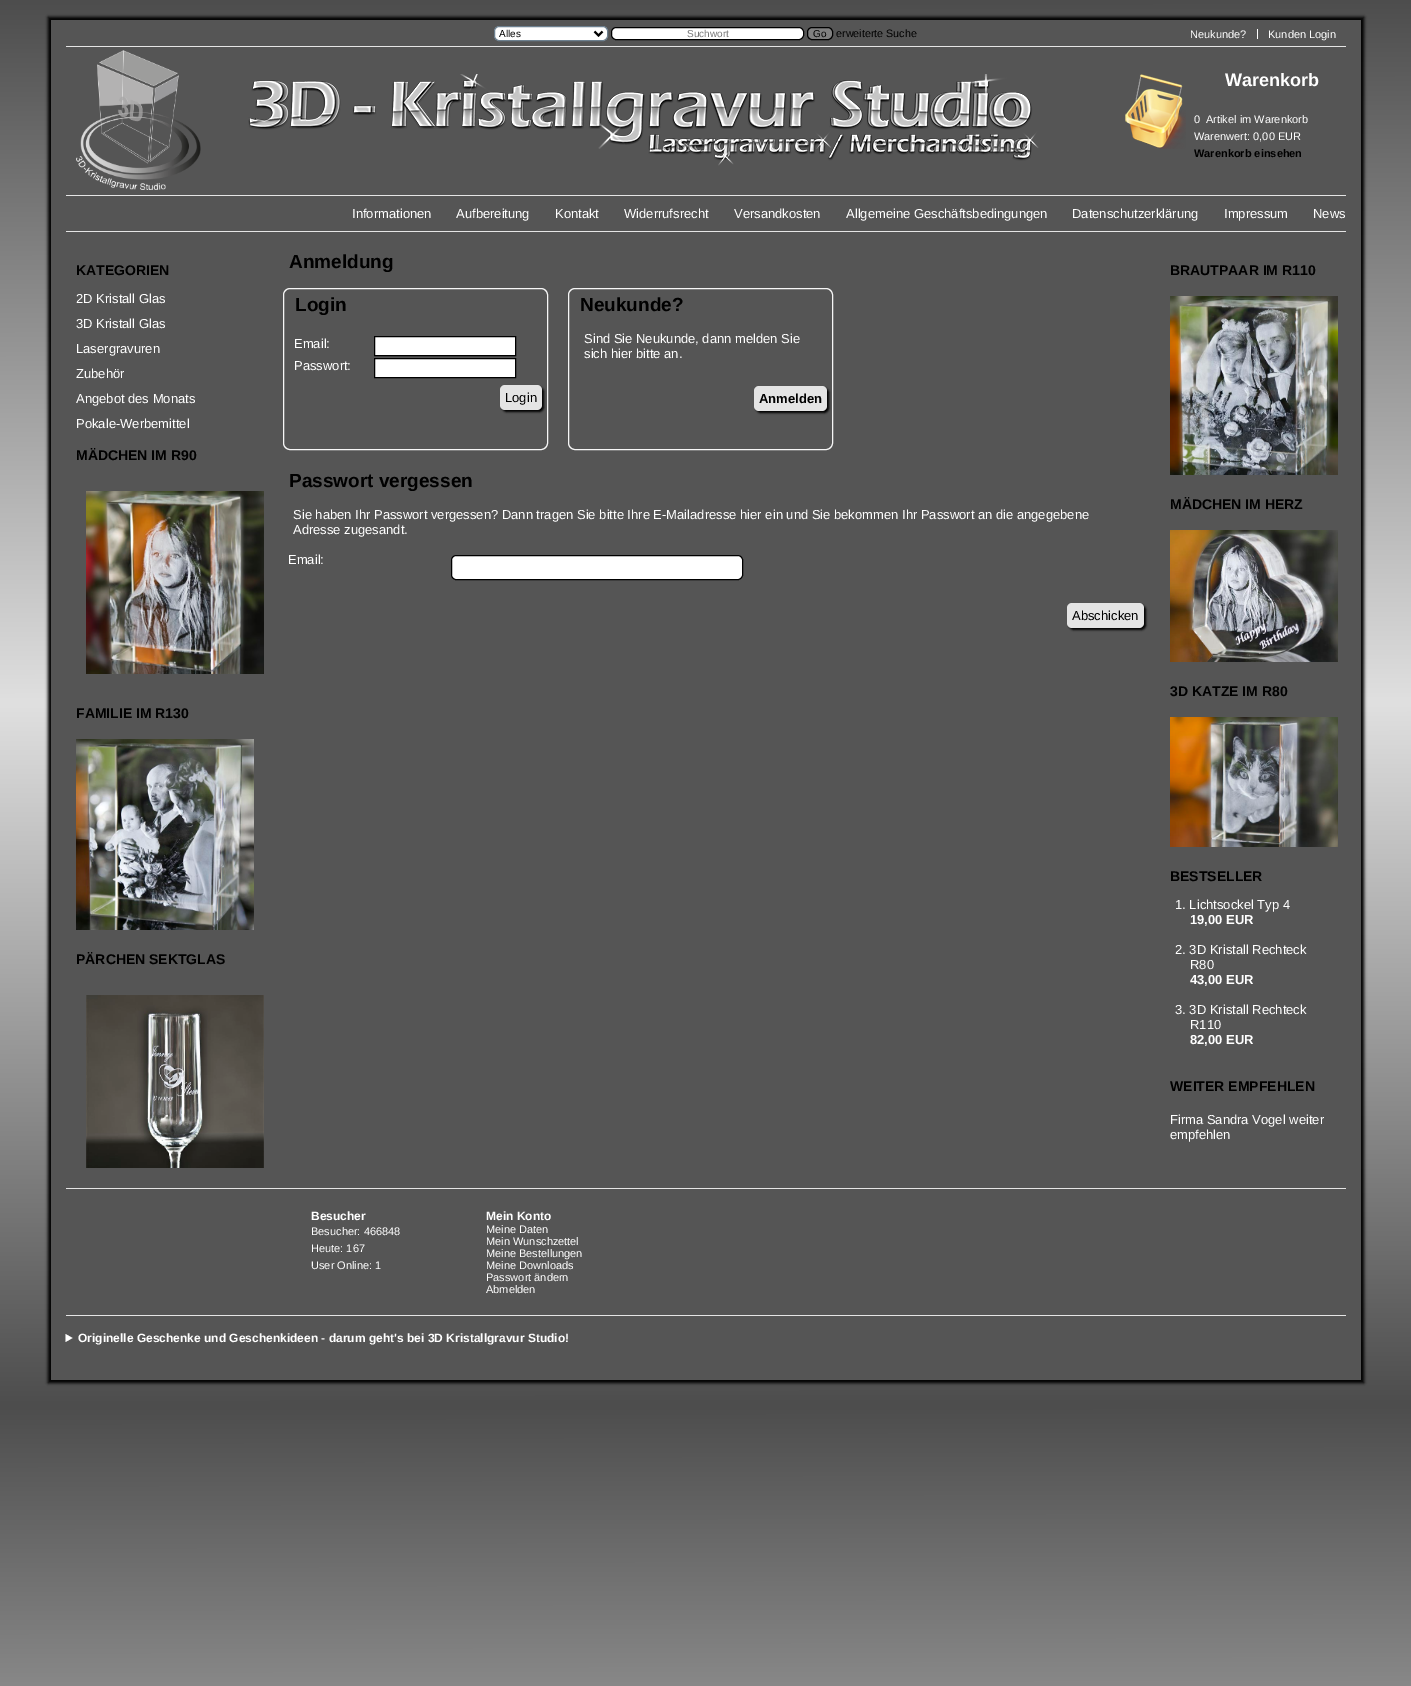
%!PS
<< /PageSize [1411 1686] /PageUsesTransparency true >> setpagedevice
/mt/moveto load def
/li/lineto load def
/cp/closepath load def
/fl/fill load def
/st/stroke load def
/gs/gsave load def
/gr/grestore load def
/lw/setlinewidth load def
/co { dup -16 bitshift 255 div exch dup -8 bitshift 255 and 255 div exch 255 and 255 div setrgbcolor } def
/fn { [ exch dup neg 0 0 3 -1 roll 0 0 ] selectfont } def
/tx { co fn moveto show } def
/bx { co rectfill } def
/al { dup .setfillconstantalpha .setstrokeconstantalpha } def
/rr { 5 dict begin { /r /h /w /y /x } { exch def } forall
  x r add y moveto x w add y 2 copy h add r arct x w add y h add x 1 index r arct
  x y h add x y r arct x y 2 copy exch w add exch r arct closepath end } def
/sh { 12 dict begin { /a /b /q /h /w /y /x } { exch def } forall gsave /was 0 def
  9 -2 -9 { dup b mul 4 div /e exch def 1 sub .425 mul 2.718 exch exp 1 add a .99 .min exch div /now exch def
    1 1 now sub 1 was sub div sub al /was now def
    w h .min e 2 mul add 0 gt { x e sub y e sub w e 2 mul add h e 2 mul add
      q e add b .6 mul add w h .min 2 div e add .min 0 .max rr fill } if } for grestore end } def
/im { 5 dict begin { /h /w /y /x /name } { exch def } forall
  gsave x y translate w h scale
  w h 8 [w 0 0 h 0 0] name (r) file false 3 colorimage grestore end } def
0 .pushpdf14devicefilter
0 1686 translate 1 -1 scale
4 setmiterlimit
0 0 1411 1686 16#FFFFFF bx
gs 0 0 mt 1411 0 li 1411 1405 li 0 1405 li cp clip newpath
<< /ShadingType 2 /ColorSpace /DeviceRGB /Coords [705 0 706 1405] /Extend [true true] /Function << /FunctionType 3 /Domain [0 1] /Functions [<< /FunctionType 2 /Domain [0 1] /C0 [.302 .302 .302] /C1 [.878 .878 .878] /N 1 >> << /FunctionType 2 /Domain [0 1] /C0 [.878 .878 .878] /C1 [.302 .302 .302] /N 1 >>] /Bounds [.5] /Encode [0 1 0 1] >> >> shfill gr
gs 0 1405 mt 1411 1405 li 1411 1686 li 0 1686 li cp clip newpath
<< /ShadingType 2 /ColorSpace /DeviceRGB /Coords [705 1405 706 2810] /Extend [true true] /Function << /FunctionType 3 /Domain [0 1] /Functions [<< /FunctionType 2 /Domain [0 1] /C0 [.302 .302 .302] /C1 [.878 .878 .878] /N 1 >> << /FunctionType 2 /Domain [0 1] /C0 [.878 .878 .878] /C1 [.302 .302 .302] /N 1 >>] /Bounds [.5] /Encode [0 1 0 1] >> >> shfill gr
16#000000 co
48 17 1316 1366 0 1.5 1 sh
51 20 1310 1360 16#555555 bx
66 46 1280 1 16#E5E5E5 bx
16#FFFFFF co
494.5 26.5 113 14 4.5 rr gs fl gr
16#6D808F co
st
16#000000 co
2 lw
594.5 31.5 mt 598.5 35.5 li 602.5 31.5 li st
16#FFFFFF co
611.5 27.5 192 12 4.5 rr gs fl gr
16#000000 co
1 lw
st
16#808080 co
807.5 27.5 25 12 4.5 rr gs fl gr
16#000000 co
st
1257 29 1 10 16#FFFFFF bx
(media/1.raw) 76 50 125 140 im
(media/2.raw) 248 74 791 92 im
(media/3.raw) 1125 74 61 75 im
66 195 1280 1 16#E5E5E5 bx
66 231 1280 1 16#E5E5E5 bx
(media/4.raw) 86 491 178 183 im
(media/5.raw) 76 739 178 191 im
(media/6.raw) 86 995 178 173 im
16#F6F6F6 co
283.5 288.5 264 161 6.5 rr st
16#FFFFFF co
374.5 336.5 mt 515.5 336.5 li 515.5 355.5 li 374.5 355.5 li cp gs fl gr
16#000000 co
st
16#FFFFFF co
374.5 358.5 mt 515.5 358.5 li 515.5 377.5 li 374.5 377.5 li cp gs fl gr
16#000000 co
st
502 387 42 25 5 1 1 sh
16#E4E4E4 co
500 385 42 25 5 rr fl
16#F6F6F6 co
568.5 288.5 264 161 6.5 rr st
16#000000 co
756 388 73 25 5 1 1 sh
16#E4E4E4 co
754 386 73 25 5 rr fl
16#FFFFFF co
451.5 555.5 291 24 4.5 rr gs fl gr
16#000000 co
st
1069 605 77 25 5 1 1 sh
16#E4E4E4 co
1067 603 77 25 5 rr fl
(media/7.raw) 1170 296 168 179 im
(media/8.raw) 1170 530 168 132 im
(media/9.raw) 1170 717 168 130 im
66 1188 1280 1 16#E5E5E5 bx
66 1315 1280 1 16#E5E5E5 bx
16#FFFFFF co
65.5 1334 mt 72.5 1338 li 65.5 1342 li cp fl
(Alles) 499 37 /LiberationSans-Regular 10 16#000000 tx
(Suchwort) 687 37 /LiberationSans-Regular 10 16#757575 tx
(Go) 813 37 /LiberationSans-Regular 10 16#000000 tx
(erweiterte Suche) 836 37 /LiberationSans-Regular 10.75 16#000000 tx
(Neukunde?) 1190 38 /LiberationSans-Regular 11 16#FFFFFF tx
(Kunden Login) 1268 38 /LiberationSans-Regular 11 16#FFFFFF tx
(Warenkorb) 1225 86 /LiberationSans-Bold 18 16#FFFFFF tx
(0) 1194 123 /LiberationSans-Regular 11 16#FFFFFF tx
(Artikel im Warenkorb) 1206 123 /LiberationSans-Regular 11 16#FFFFFF tx
(Warenwert: 0,00 EUR) 1194 140 /LiberationSans-Regular 11 16#FFFFFF tx
(Warenkorb einsehen) 1194 157 /LiberationSans-Bold 11 16#000000 tx
(Informationen) 352 218 /LiberationSans-Regular 13 16#FFFFFF tx
(Aufbereitung) 456 218 /LiberationSans-Regular 13 16#FFFFFF tx
(Kontakt) 555 218 /LiberationSans-Regular 13 16#FFFFFF tx
(Widerrufsrecht) 624 218 /LiberationSans-Regular 13 16#FFFFFF tx
(Versandkosten) 734 218 /LiberationSans-Regular 13 16#FFFFFF tx
(Allgemeine Geschäftsbedingungen) 846 218 /LiberationSans-Regular 13 16#FFFFFF tx
(Datenschutzerklärung) 1072 218 /LiberationSans-Regular 13 16#FFFFFF tx
(Impressum) 1224 218 /LiberationSans-Regular 13 16#FFFFFF tx
(News) 1313 218 /LiberationSans-Regular 13 16#FFFFFF tx
(KATEGORIEN) 76 275 /LiberationSans-Bold 14 16#000000 tx
(2D Kristall Glas) 76 303 /LiberationSans-Regular 13 16#FFFFFF tx
(3D Kristall Glas) 76 328 /LiberationSans-Regular 13 16#FFFFFF tx
(Lasergravuren) 76 353 /LiberationSans-Regular 13 16#FFFFFF tx
(Zubehör) 76 378 /LiberationSans-Regular 13 16#FFFFFF tx
(Angebot des Monats) 76 403 /LiberationSans-Regular 13 16#FFFFFF tx
(Pokale-Werbemittel) 76 428 /LiberationSans-Regular 13 16#FFFFFF tx
(MÄDCHEN IM R90) 76 460 /LiberationSans-Bold 14 16#000000 tx
(FAMILIE IM R130) 76 718 /LiberationSans-Bold 14 16#000000 tx
(PÄRCHEN SEKTGLAS) 76 964 /LiberationSans-Bold 14 16#000000 tx
(Anmeldung) 289 268 /LiberationSans-Bold 19 16#000000 tx
(Login) 295 311 /LiberationSans-Bold 19 16#000000 tx
(Email:) 294 348 /LiberationSans-Regular 13 16#FFFFFF tx
(Passwort:) 294 370 /LiberationSans-Regular 13 16#FFFFFF tx
(Login) 505 402 /LiberationSans-Regular 13 16#000000 tx
(Neukunde?) 580 311 /LiberationSans-Bold 19 16#000000 tx
(Sind Sie Neukunde, dann melden Sie) 584 343 /LiberationSans-Regular 13 16#FFFFFF tx
(sich hier bitte an.) 584 358 /LiberationSans-Regular 13 16#FFFFFF tx
(Anmelden) 759 403 /LiberationSans-Bold 13 16#000000 tx
(Passwort vergessen) 289 487 /LiberationSans-Bold 19 16#000000 tx
(Sie haben Ihr Passwort vergessen? Dann tragen Sie bitte Ihre E-Mailadresse hier ein und Sie bekommen Ihr Passwort an die angegebene) 293 519 /LiberationSans-Regular 13 16#FFFFFF tx
(Adresse zugesandt.) 293 534 /LiberationSans-Regular 13 16#FFFFFF tx
(Email:) 288 564 /LiberationSans-Regular 13 16#FFFFFF tx
(Abschicken) 1072 620 /LiberationSans-Regular 13 16#000000 tx
(BRAUTPAAR IM R110) 1170 275 /LiberationSans-Bold 14 16#000000 tx
(MÄDCHEN IM HERZ) 1170 509 /LiberationSans-Bold 14 16#000000 tx
(3D KATZE IM R80) 1170 696 /LiberationSans-Bold 14 16#000000 tx
(BESTSELLER) 1170 881 /LiberationSans-Bold 14 16#000000 tx
(1. Lichtsockel Typ 4) 1175 909 /LiberationSans-Regular 13 16#FFFFFF tx
(19,00 EUR) 1190 924 /LiberationSans-Bold 13 16#FFFFFF tx
(2. 3D Kristall Rechteck) 1175 954 /LiberationSans-Regular 13 16#FFFFFF tx
(R80) 1190 969 /LiberationSans-Regular 13 16#FFFFFF tx
(43,00 EUR) 1190 984 /LiberationSans-Bold 13 16#FFFFFF tx
(3. 3D Kristall Rechteck) 1175 1014 /LiberationSans-Regular 13 16#FFFFFF tx
(R110) 1190 1029 /LiberationSans-Regular 13 16#FFFFFF tx
(82,00 EUR) 1190 1044 /LiberationSans-Bold 13 16#FFFFFF tx
(WEITER EMPFEHLEN) 1170 1091 /LiberationSans-Bold 14 16#000000 tx
(Firma Sandra Vogel weiter) 1170 1124 /LiberationSans-Regular 13 16#FFFFFF tx
(empfehlen) 1170 1139 /LiberationSans-Regular 13 16#FFFFFF tx
(Besucher) 311 1220 /LiberationSans-Bold 12 16#FFFFFF tx
(Besucher: 466848) 311 1235 /LiberationSans-Regular 11 16#FFFFFF tx
(Heute: 167) 311 1252 /LiberationSans-Regular 11 16#FFFFFF tx
(User Online: 1) 311 1269 /LiberationSans-Regular 11 16#FFFFFF tx
(Mein Konto) 486 1220 /LiberationSans-Bold 12 16#FFFFFF tx
(Meine Daten) 486 1233 /LiberationSans-Regular 11 16#FFFFFF tx
(Mein Wunschzettel) 486 1245 /LiberationSans-Regular 11 16#FFFFFF tx
(Meine Bestellungen) 486 1257 /LiberationSans-Regular 11 16#FFFFFF tx
(Meine Downloads) 486 1269 /LiberationSans-Regular 11 16#FFFFFF tx
(Passwort ändern) 486 1281 /LiberationSans-Regular 11 16#FFFFFF tx
(Abmelden) 486 1293 /LiberationSans-Regular 11 16#FFFFFF tx
(Originelle Geschenke und Geschenkideen - darum geht's bei 3D Kristallgravur Studio!) 78 1342 /LiberationSans-Bold 12 16#FFFFFF tx
.poppdf14devicefilter showpage
